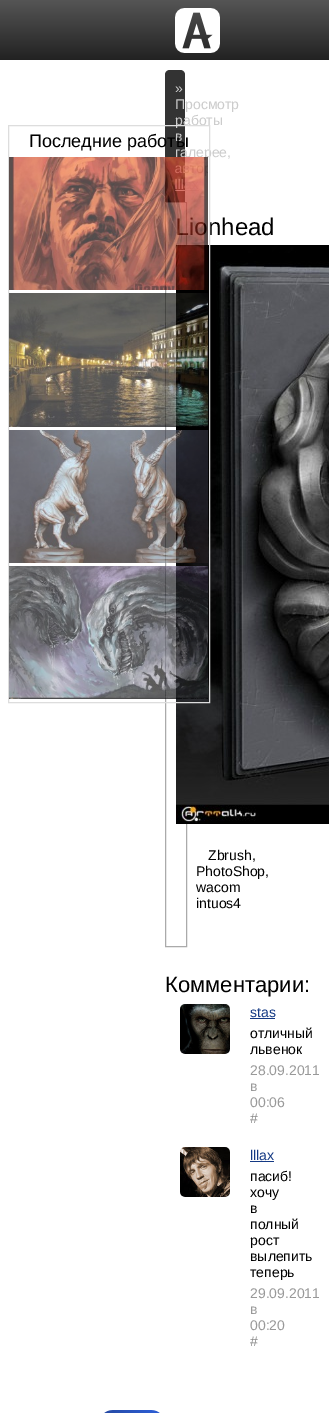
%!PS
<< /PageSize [329 1413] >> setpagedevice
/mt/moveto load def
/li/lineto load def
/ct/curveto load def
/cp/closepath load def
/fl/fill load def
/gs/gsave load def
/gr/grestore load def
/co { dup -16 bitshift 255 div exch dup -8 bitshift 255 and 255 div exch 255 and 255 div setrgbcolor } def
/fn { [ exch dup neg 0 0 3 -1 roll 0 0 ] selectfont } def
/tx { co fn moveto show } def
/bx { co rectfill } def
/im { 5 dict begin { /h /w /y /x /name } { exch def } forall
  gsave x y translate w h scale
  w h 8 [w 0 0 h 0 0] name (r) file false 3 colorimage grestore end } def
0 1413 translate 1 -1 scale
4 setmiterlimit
0 0 329 1413 16#FFFFFF bx
gs 0 0 mt 329 0 li 329 60 li 0 60 li cp clip newpath
<< /ShadingType 2 /ColorSpace /DeviceRGB /Coords [165 0 165 60] /Extend [true true] /Function << /FunctionType 2 /Domain [0 1] /C0 [.333 .333 .333] /C1 [.133 .133 .133] /N 1 >> >> shfill gr
(media/1.raw) 175 8 45 45 im
16#333333 co
170 70 mt 180 70 li 183 70 185 72 185 75 ct 185 202 li 165 202 li 165 75 li 165 72 167 70 170 70 ct cp fl
16#AAAAAA co
165.5 202.5 21 744 rectstroke
(media/6.raw) 176 245 153 579 im
(media/7.raw) 180 1004 50 50 im
250 1018 25 1 16#143984 bx
(media/8.raw) 180 1147 50 50 im
250 1161 24 1 16#143984 bx
(media/9.raw) 104 1410 56 3 im
(») 175 93 /LiberationSans-Regular 14 16#CCCCCC tx
(Просмотр) 175 109 /LiberationSans-Regular 14 16#CCCCCC tx
(работы) 175 125 /LiberationSans-Regular 14 16#CCCCCC tx
(в) 175 141 /LiberationSans-Regular 14 16#CCCCCC tx
(галерее,) 175 157 /LiberationSans-Regular 14 16#CCCCCC tx
(nhead) 208 235 /LiberationSans-Regular 24 16#000000 tx
16#DDDDDD co
8.5 125.5 201 577 rectstroke
(media/5.raw) 9 566 199 133 im
(media/4.raw) 9 430 199 133 im
(media/3.raw) 9 293 199 134 im
(media/2.raw) 9 157 199 133 im
(Последние работы) 29 147 /LiberationSans-Regular 18 16#000000 tx
(Zbrush,) 208 860 /LiberationSans-Regular 14 16#000000 tx
(PhotoShop,) 196 876 /LiberationSans-Regular 14 16#000000 tx
(wacom) 196 892 /LiberationSans-Regular 14 16#000000 tx
(intuos4) 196 908 /LiberationSans-Regular 14 16#000000 tx
(Комментарии:) 165 992 /LiberationSans-Regular 22 16#000000 tx
(stas) 250 1017 /LiberationSans-Regular 14 16#143984 tx
(отличный) 250 1038 /LiberationSans-Regular 14 16#000000 tx
(львенок) 250 1054 /LiberationSans-Regular 14 16#000000 tx
(28.09.2011) 250 1075 /LiberationSans-Regular 14 16#999999 tx
(в) 250 1091 /LiberationSans-Regular 14 16#999999 tx
(00:06) 250 1107 /LiberationSans-Regular 14 16#999999 tx
(#) 250 1123 /LiberationSans-Regular 14 16#888888 tx
(lllax) 250 1160 /LiberationSans-Regular 14 16#143984 tx
(пасиб!) 250 1181 /LiberationSans-Regular 14 16#000000 tx
(хочу) 250 1197 /LiberationSans-Regular 14 16#000000 tx
(в) 250 1213 /LiberationSans-Regular 14 16#000000 tx
(полный) 250 1229 /LiberationSans-Regular 14 16#000000 tx
(рост) 250 1245 /LiberationSans-Regular 14 16#000000 tx
(вылепить) 250 1261 /LiberationSans-Regular 14 16#000000 tx
(теперь) 250 1277 /LiberationSans-Regular 14 16#000000 tx
(29.09.2011) 250 1298 /LiberationSans-Regular 14 16#999999 tx
(в) 250 1314 /LiberationSans-Regular 14 16#999999 tx
(00:20) 250 1330 /LiberationSans-Regular 14 16#999999 tx
(#) 250 1346 /LiberationSans-Regular 14 16#888888 tx
showpage
